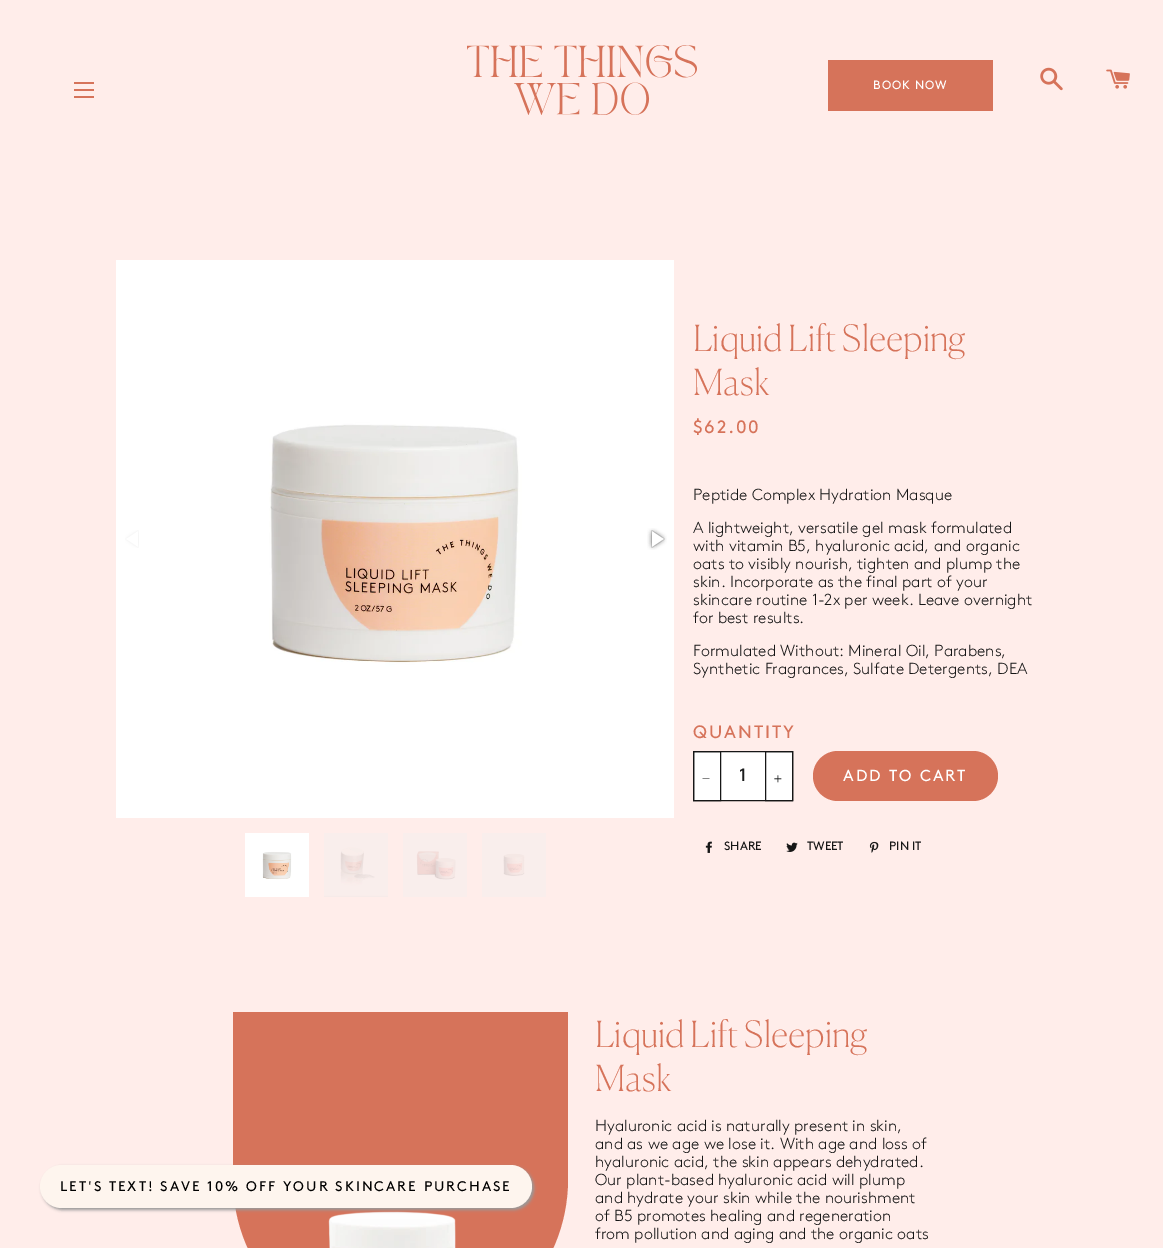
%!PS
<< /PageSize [1163 1248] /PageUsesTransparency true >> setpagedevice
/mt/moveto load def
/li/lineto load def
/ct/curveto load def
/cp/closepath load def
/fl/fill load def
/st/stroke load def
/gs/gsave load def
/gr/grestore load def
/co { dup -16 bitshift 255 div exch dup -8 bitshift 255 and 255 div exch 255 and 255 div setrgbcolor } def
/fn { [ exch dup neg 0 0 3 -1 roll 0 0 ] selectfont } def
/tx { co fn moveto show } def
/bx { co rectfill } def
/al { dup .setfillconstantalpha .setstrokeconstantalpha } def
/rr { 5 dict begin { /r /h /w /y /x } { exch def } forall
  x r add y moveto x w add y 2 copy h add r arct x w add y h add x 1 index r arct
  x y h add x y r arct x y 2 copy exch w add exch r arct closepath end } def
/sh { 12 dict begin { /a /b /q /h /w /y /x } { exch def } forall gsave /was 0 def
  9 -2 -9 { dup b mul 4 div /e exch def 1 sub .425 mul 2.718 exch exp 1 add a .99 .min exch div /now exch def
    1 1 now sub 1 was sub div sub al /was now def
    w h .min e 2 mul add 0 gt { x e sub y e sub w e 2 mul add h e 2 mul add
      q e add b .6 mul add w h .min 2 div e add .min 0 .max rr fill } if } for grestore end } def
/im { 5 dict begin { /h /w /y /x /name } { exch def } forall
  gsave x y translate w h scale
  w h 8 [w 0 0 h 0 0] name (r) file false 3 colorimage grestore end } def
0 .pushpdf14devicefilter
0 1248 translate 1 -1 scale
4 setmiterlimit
0 0 1163 1248 16#FFEDEA bx
74 82 20 2 16#D6735A bx
74 89 20 2 16#D6735A bx
74 96 20 2 16#D6735A bx
(media/1.raw) 467 45 230 70 im
828 60 165 51 16#D6735A bx
(media/2.raw) 1040 67 23 24 im
(media/3.raw) 1106 69 24 20 im
233 1012 mt 568 1012 li 568 1179 li 568 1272 493 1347 400 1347 ct 308 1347 233 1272 233 1179 ct cp fl
(media/15.raw) 328 1211 128 37 im
16#999999 co
42 1167 492 43 21.5 1.5 1 sh
16#FEF5EE co
40 1165 492 43 21.5 rr fl
(media/4.raw) 116 260 558 558 im
(media/5.raw) 125 530 14 18 im
(media/6.raw) 647 528 20 22 im
(media/7.raw) 245 833 64 64 im
324 833 64 64 16#F7E6E4 bx
(media/8.raw) 324 833 64 64 im
403 833 64 64 16#F7E6E4 bx
(media/9.raw) 403 833 64 64 im
482 833 64 64 16#F7E6E4 bx
(media/10.raw) 482 833 64 64 im
16#FFFFFF co
693.5 751.5 mt 792.5 751.5 li 792.5 800.5 li 693.5 800.5 li cp gs fl gr
16#161616 co
st
693.5 751.5 27 49 rectstroke
16#1C1D1D co
702.5 778.5 mt 709.5 778.5 li 709.5 779 li 702.5 779 li cp fl
16#161616 co
765.5 751.5 27 49 rectstroke
(media/11.raw) 774 775 8 8 im
16#D6735A co
813 751 185 50 25 rr fl
(media/12.raw) 705 841 7 12 im
(media/13.raw) 786 842 12 10 im
(media/14.raw) 869 841 10 12 im
/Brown-Regular 12 fn
16#FFFFFF co
873 89 mt 1 0 (BOOK NOW) ashow
/Brown-Regular 14 fn
16#000000 co
60 1191 mt 2 0 (LET'S TEXT! SAVE 10% OFF YOUR SKINCARE PURCHASE) ashow
(Liquid Lift Sleeping) 693 351 /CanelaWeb-Thin 36 16#D6735A tx
(Mask) 693 395 /CanelaWeb-Thin 36 16#D6735A tx
/Brown-Regular 18 fn
693 433 mt 1.75 0 ($62.00) ashow
(Peptide Complex Hydration Masque) 693 500 /Brown-Light 16 16#161616 tx
(A lightweight, versatile gel mask formulated) 693 533 /Brown-Light 16 16#161616 tx
(with vitamin B5, hyaluronic acid, and organic) 693 551 /Brown-Light 16 16#161616 tx
(oats to visibly nourish, tighten and plump the) 693 569 /Brown-Light 16 16#161616 tx
(skin. Incorporate as the final part of your) 693 587 /Brown-Light 16 16#161616 tx
(skincare routine 1-2x per week. Leave overnight) 693 605 /Brown-Light 16 16#161616 tx
(for best results.) 693 623 /Brown-Light 16 16#161616 tx
(Formulated Without: Mineral Oil, Parabens,) 693 656 /Brown-Light 16 16#161616 tx
(Synthetic Fragrances, Sulfate Detergents, DEA) 693 674 /Brown-Light 16 16#161616 tx
/Brown-Regular 18 fn
16#D6735A co
693 738 mt 2 0 (QUANTITY) ashow
(1) 739 781 /Brown-Regular 18 16#1C1D1D tx
/Brown-Regular 16 fn
16#FFFFFF co
843 781 mt 2 0 (ADD TO CART) ashow
(SHARE) 724 850 /Brown-Regular 12 16#161616 tx
(TWEET) 807 850 /Brown-Regular 12 16#161616 tx
(PIN IT) 889 850 /Brown-Regular 12 16#161616 tx
(Liquid Lift Sleeping) 595 1047 /CanelaWeb-Thin 36 16#D6735A tx
(Mask) 595 1091 /CanelaWeb-Thin 36 16#D6735A tx
(Hyaluronic acid is naturally present in skin,) 595 1131 /Brown-Light 16 16#161616 tx
(and as we age we lose it. With age and loss of) 595 1149 /Brown-Light 16 16#161616 tx
(hyaluronic acid, the skin appears dehydrated.) 595 1167 /Brown-Light 16 16#161616 tx
(Our plant-based hyaluronic acid will plump) 595 1185 /Brown-Light 16 16#161616 tx
(and hydrate your skin while the nourishment) 595 1203 /Brown-Light 16 16#161616 tx
(of B5 promotes healing and regeneration) 595 1221 /Brown-Light 16 16#161616 tx
(from pollution and aging and the organic oats) 595 1239 /Brown-Light 16 16#161616 tx
.poppdf14devicefilter showpage
